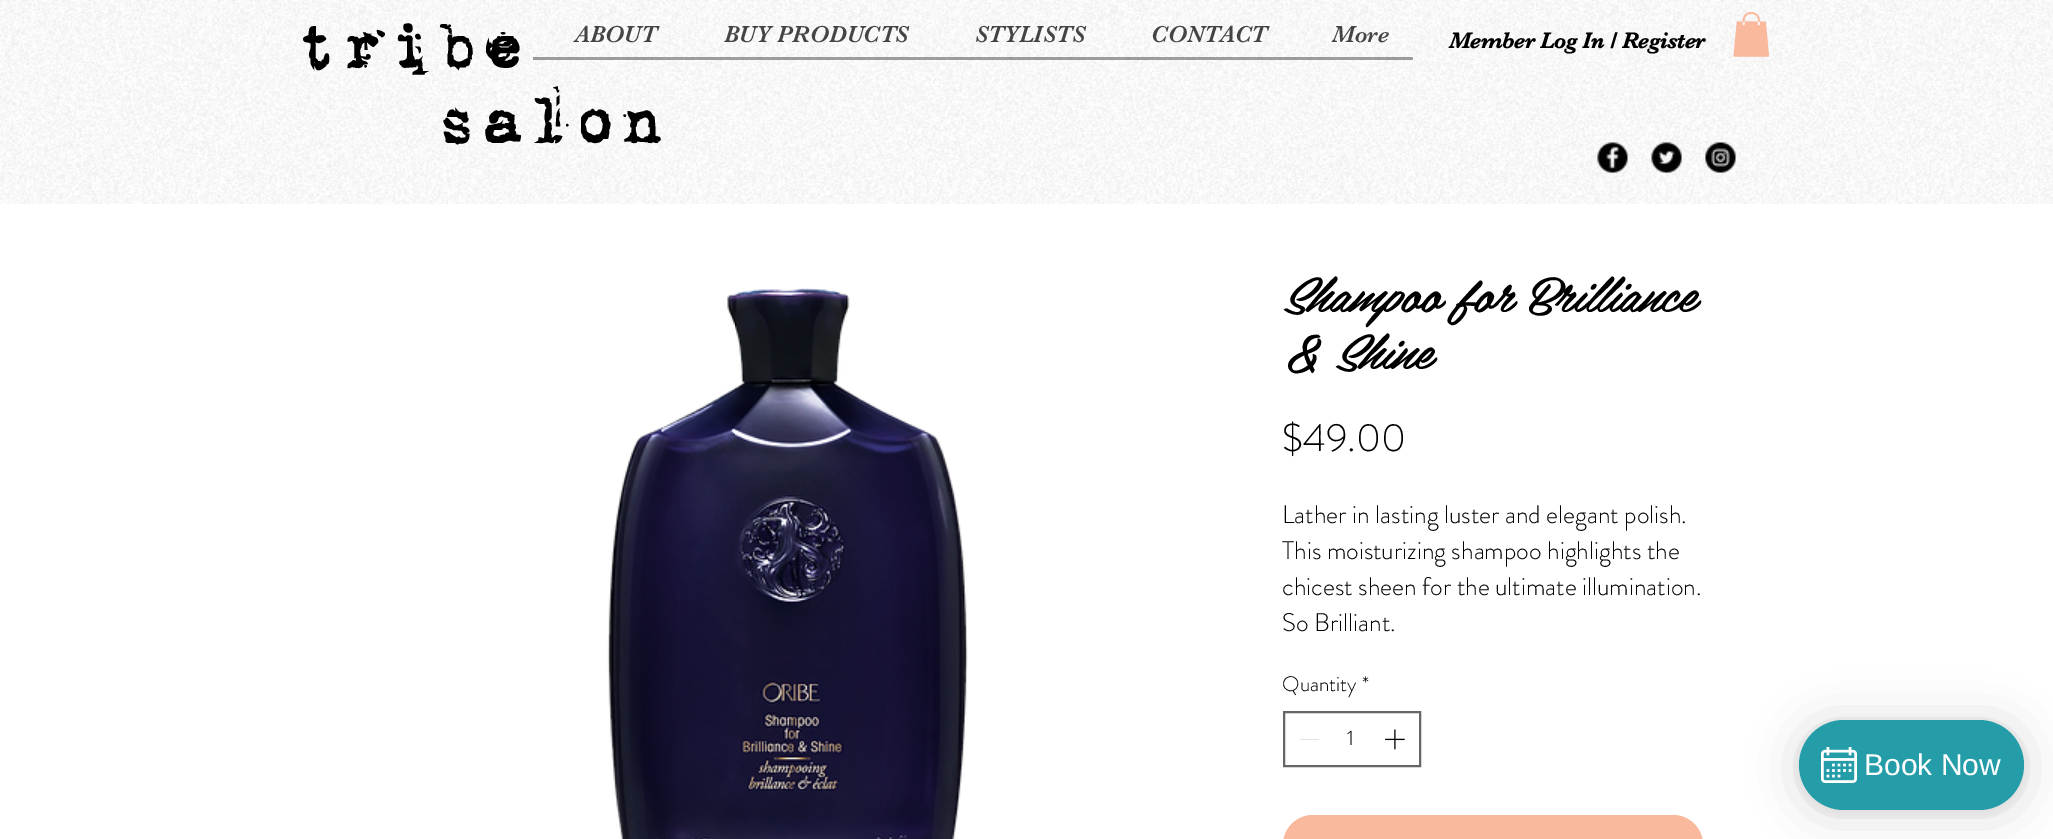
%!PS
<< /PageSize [2053 839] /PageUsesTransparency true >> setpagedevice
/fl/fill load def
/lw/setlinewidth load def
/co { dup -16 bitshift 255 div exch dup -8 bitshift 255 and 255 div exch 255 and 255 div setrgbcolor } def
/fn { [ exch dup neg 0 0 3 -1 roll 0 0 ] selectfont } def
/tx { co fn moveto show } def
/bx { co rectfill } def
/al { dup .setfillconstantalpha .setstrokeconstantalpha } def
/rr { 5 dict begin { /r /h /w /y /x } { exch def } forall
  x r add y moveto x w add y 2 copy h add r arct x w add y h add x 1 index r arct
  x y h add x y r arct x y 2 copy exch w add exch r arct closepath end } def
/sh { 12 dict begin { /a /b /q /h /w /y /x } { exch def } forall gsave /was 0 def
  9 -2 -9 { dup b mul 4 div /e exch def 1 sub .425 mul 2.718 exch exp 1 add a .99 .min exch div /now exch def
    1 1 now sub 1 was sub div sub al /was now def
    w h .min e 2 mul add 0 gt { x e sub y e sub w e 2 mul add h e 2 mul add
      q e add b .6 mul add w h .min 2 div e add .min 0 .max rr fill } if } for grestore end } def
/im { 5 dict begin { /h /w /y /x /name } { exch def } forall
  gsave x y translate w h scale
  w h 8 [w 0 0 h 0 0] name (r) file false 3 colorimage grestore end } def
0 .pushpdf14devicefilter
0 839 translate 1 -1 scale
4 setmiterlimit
0 0 2053 839 16#FFFFFF bx
(media/1.raw) 0 0 2053 204 im
0.37 al
533 57 880 3 16#000000 bx
1 al
(media/2.raw) 1733 12 37 45 im
(media/3.raw) 1597 142 31 31 im
(media/4.raw) 1651 142 31 31 im
(media/5.raw) 1705 142 31 31 im
(media/6.raw) 607 288 361 551 im
16#666666 co
2 lw
1284 712 136 54 rectstroke
1300 739 19 1 16#E3E3E3 bx
(media/7.raw) 1385 729 20 21 im
16#FAB89D co
1283 815 420 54 30 rr fl
16#000000 co
1799 723 225 90 45 24 .16 sh
1799 722 225 90 45 4.5 .06 sh
16#259DA8 co
1799 720 225 90 45 rr fl
(media/8.raw) 1821 747 36 36 im
(tribe) 292 68 /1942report-Bold 72 16#000000 tx
(salon) 432 143 /1942report-Bold 72 16#000000 tx
(ABOUT) 575 42 /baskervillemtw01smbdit-Regular 24 16#444444 tx
(BUY PRODUCTS) 724 42 /baskervillemtw01smbdit-Regular 24 16#444444 tx
(STYLISTS) 975 42 /baskervillemtw01smbdit-Regular 24 16#444444 tx
(CONTACT) 1151 42 /baskervillemtw01smbdit-Regular 24 16#444444 tx
(More) 1332 42 /baskervillemtw01smbdit-Regular 24 16#444444 tx
(Member Log In / Register) 1449 48 /baskervillemtw01smbdit-Bold 22.5 16#000000 tx
(Shampoo for Brilliance) 1282 312 /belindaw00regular-Italic 48 16#000000 tx
(& Shine) 1282 369 /belindaw00regular-Italic 48 16#000000 tx
($49.00) 1282 451 /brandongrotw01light-Light 39 16#000000 tx
(Lather in lasting luster and elegant polish.) 1282 523 /brandongrotw01light-Light 25.5 16#000000 tx
(This moisturizing shampoo highlights the) 1282 559 /brandongrotw01light-Light 25.5 16#000000 tx
(chicest sheen for the ultimate illumination.) 1282 595 /brandongrotw01light-Light 25.5 16#000000 tx
(So Brilliant.) 1282 631 /brandongrotw01light-Light 25.5 16#000000 tx
(Quantity) 1282 691 /brandongrotw01light-Light 21 16#000000 tx
(*) 1362 691 /brandongrotw01light-Light 21 16#000000 tx
(1) 1347 745 /brandongrotw01light-Light 21 16#000000 tx
(Book Now) 1864 775 /LiberationSans-Regular 30 16#FFFFFF tx
.poppdf14devicefilter showpage
